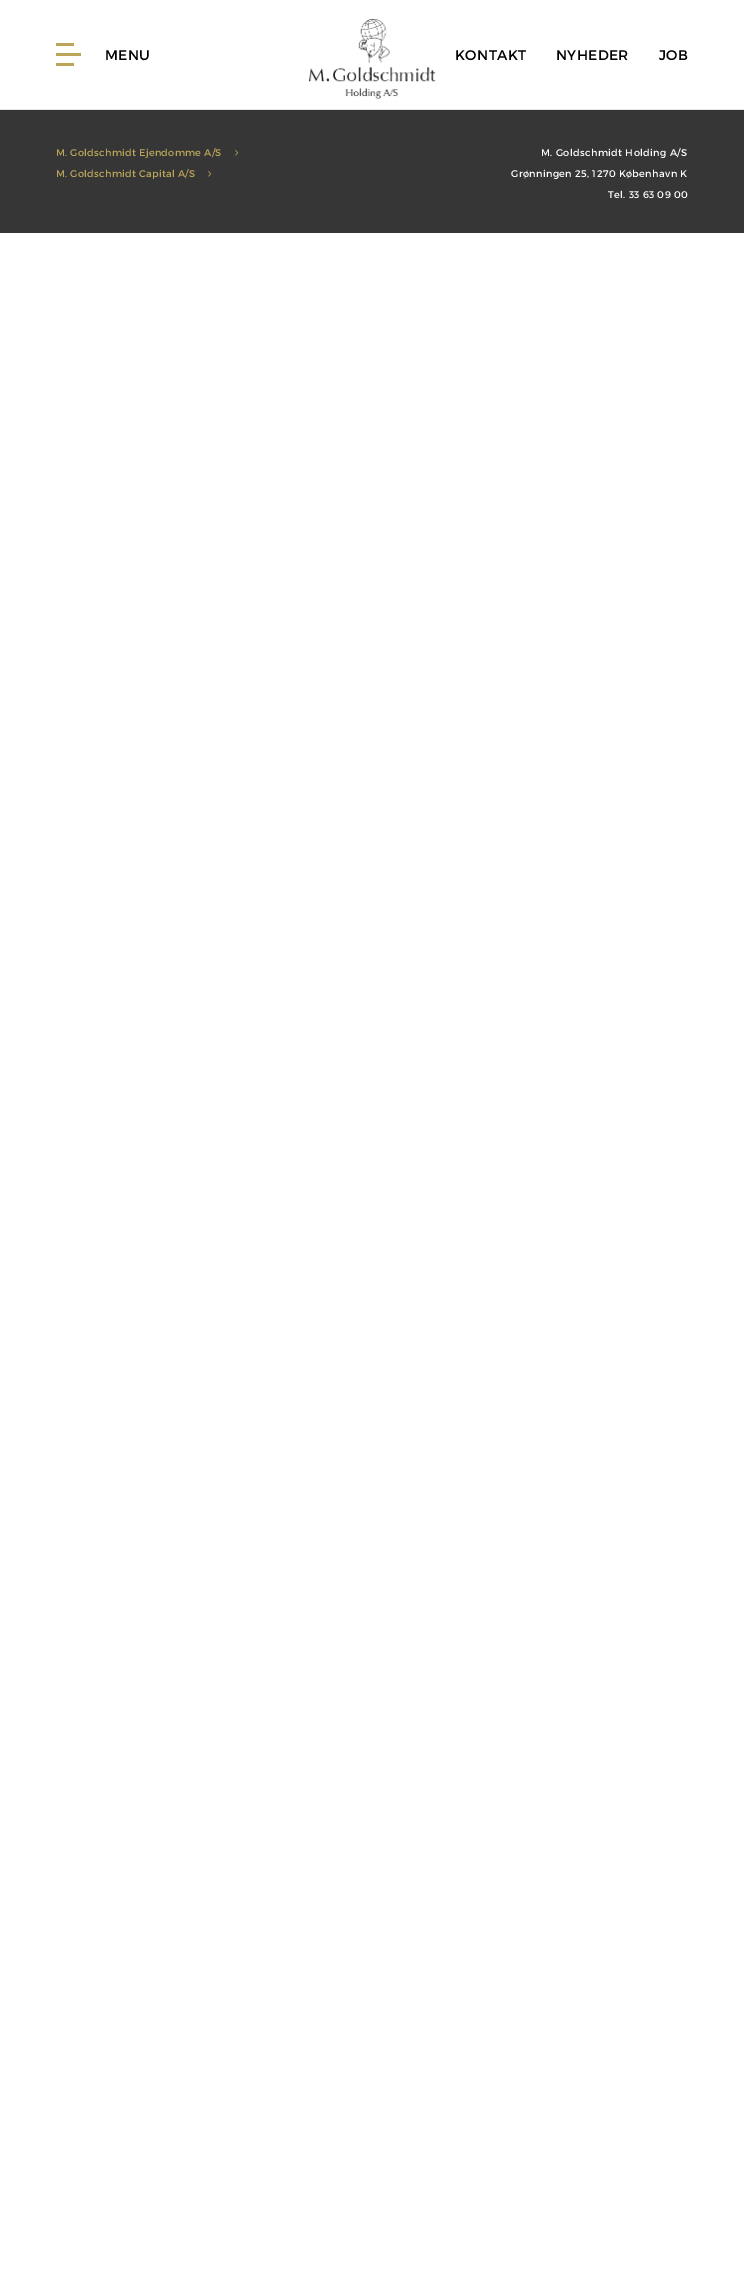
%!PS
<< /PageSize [744 2283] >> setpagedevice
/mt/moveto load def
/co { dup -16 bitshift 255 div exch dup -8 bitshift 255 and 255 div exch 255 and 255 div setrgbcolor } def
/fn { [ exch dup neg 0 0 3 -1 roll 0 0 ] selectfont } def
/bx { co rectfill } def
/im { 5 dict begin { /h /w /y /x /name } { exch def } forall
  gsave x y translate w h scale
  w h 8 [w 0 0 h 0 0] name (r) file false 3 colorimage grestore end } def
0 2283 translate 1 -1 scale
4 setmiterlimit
0 0 744 2283 16#FFFFFF bx
0 109 744 1 16#E5E5E5 bx
56 43 18 3 16#BAA558 bx
56 53 25 3 16#BAA558 bx
56 63 18 3 16#BAA558 bx
(media/1.raw) 308 19 128 80 im
0 110 744 123 16#363636 bx
(media/2.raw) 235 150 4 6 im
(media/2.raw) 208 171 4 6 im
/Montserrat-Regular 14 fn
16#000000 co
105 60 mt .35 0 (MENU) ashow
455 60 mt .35 0 (KONTAKT) ashow
556 60 mt .35 0 (NYHEDER) ashow
659 60 mt .35 0 (JOB) ashow
/Montserrat-Regular 9.75 fn
16#BAA558 co
56 156 mt .25 0 (M. Goldschmidt Ejendomme A/S) ashow
56 177 mt .25 0 (M. Goldschmidt Capital A/S) ashow
16#FFFFFF co
541 156 mt .35 0 (M. Goldschmidt Holding A/S) ashow
511 177 mt .35 0 (Grønningen 25, 1270 København K) ashow
608 198 mt .35 0 (Tel. 33 63 09 00) ashow
showpage
